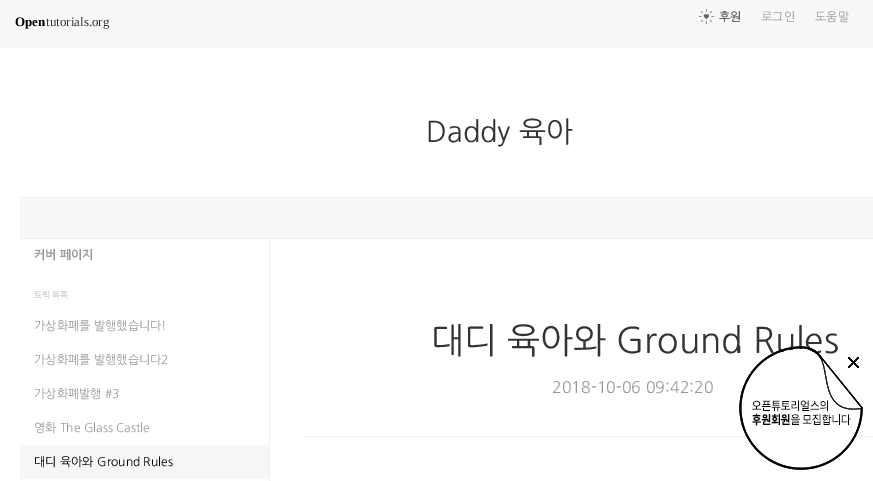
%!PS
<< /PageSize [873 481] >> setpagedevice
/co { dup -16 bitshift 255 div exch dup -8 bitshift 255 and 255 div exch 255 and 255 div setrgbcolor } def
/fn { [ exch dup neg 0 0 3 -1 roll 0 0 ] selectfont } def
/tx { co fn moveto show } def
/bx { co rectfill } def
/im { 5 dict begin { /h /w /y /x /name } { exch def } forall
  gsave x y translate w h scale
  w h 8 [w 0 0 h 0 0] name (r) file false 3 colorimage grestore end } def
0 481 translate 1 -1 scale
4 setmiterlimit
0 0 873 481 16#FFFFFF bx
0 0 873 48 16#F8F8F8 bx
(media/1.raw) 698 9 16 15 im
20 198 853 40 16#F8F8F8 bx
20 197 853 1 16#EEEEEE bx
20 238 853 1 16#EEEEEE bx
269 239 1 242 16#F2F2F2 bx
20 445 249 34 16#F6F6F6 bx
305 436 568 1 16#EEEEEE bx
(Open) 15 26 /LiberationSerif-Bold 13 16#000000 tx
(tutorials.org) 46 26 /LiberationSerif-Regular 13 16#333333 tx
(후원) 719 21 /NanumGothic-Regular 12 16#333333 tx
(로그인) 761 21 /NanumGothic-Regular 12 16#999999 tx
(도움말) 815 21 /NanumGothic-Regular 12 16#999999 tx
(Daddy 육아) 426 142 /NanumGothic-Regular 28.75 16#333333 tx
(커버 페이지) 34 259 /NanumGothic-Bold 12 16#999999 tx
(토픽 목록) 34 298 /NanumGothic-Regular 8.5 16#BBBBBB tx
(가상화폐를 발행했습니다!) 34 330 /NanumGothic-Regular 12 16#999999 tx
(가상화폐를 발행했습니다2) 34 364 /NanumGothic-Regular 12 16#999999 tx
(가상화폐발행 #3) 34 398 /NanumGothic-Regular 12 16#999999 tx
(영화 The Glass Castle) 34 432 /NanumGothic-Regular 12 16#999999 tx
(대디 육아와 Ground Rules) 34 466 /NanumGothic-Regular 12 16#000000 tx
(대디 육아와 Ground Rules) 431 353 /NanumGothic-Regular 35.25 16#333333 tx
(2018-10-06 09:42:20) 552 393 /NanumGothic-Regular 16 16#999999 tx
(media/2.raw) 739 346 124 124 im
(media/3.raw) 848 357 11 11 im
showpage
